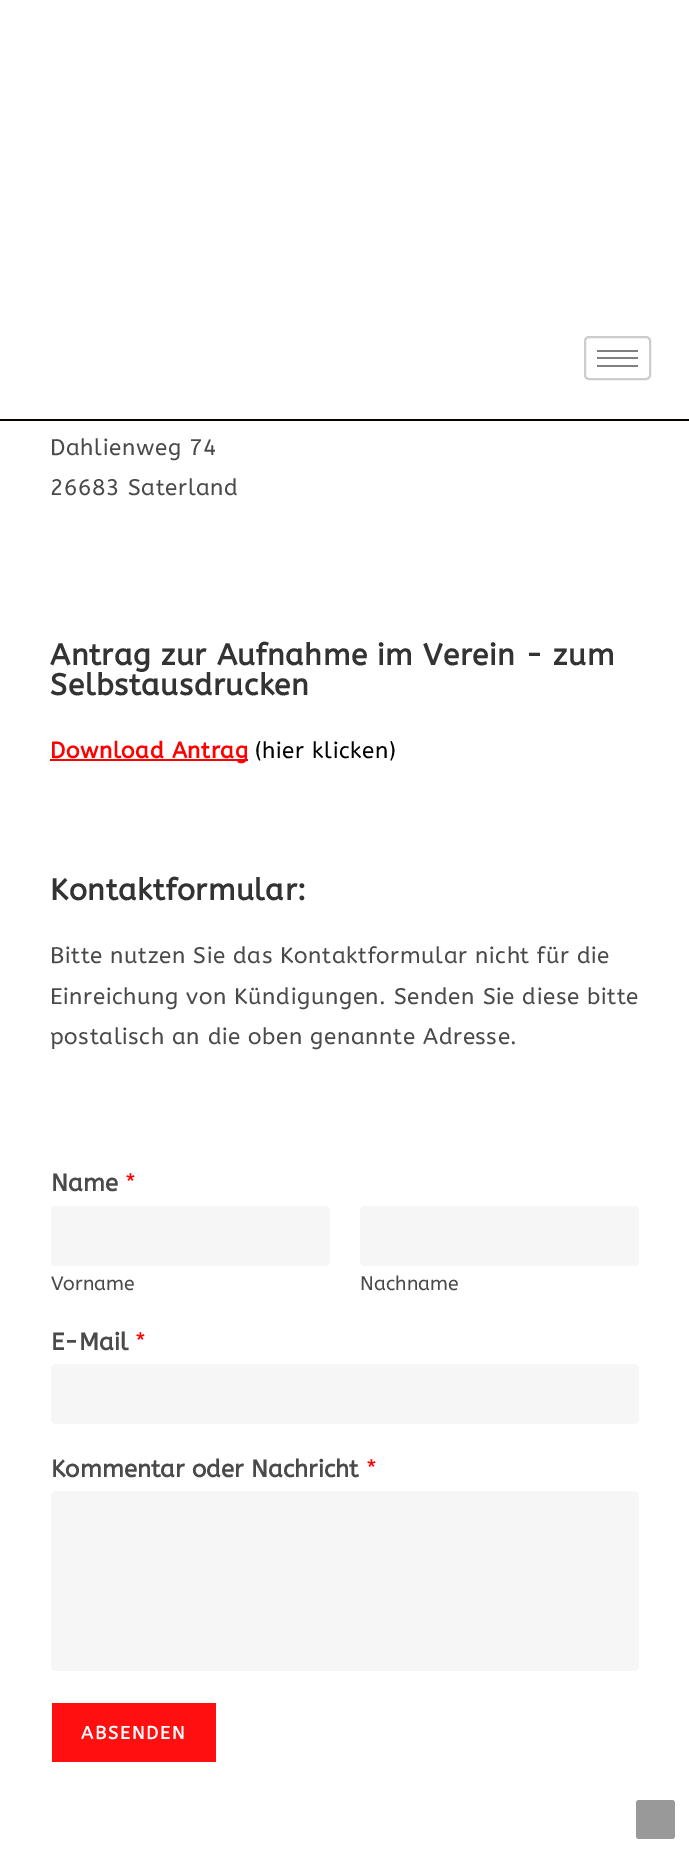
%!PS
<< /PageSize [689 1853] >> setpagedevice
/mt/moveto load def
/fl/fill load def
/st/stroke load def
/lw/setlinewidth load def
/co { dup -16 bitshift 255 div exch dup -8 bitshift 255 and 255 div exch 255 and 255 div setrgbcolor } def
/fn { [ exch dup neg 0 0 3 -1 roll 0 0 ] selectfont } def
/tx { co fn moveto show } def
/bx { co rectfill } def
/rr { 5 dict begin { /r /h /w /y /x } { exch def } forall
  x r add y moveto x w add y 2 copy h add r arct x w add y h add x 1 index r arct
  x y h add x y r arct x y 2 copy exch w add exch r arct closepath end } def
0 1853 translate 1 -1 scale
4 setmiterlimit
0 0 689 1853 16#FFFFFF bx
0 419 689 2 16#0A0000 bx
16#CCCCCC co
2 lw
585 337 65 42 4 rr st
597 350 41 2 16#808080 bx
597 357 41 2 16#808080 bx
597 365 41 2 16#808080 bx
50 759 198 2 16#FF0000 bx
16#F6F6F6 co
51 1206 279 60 5 rr fl
360 1206 279 60 5 rr fl
51 1364 588 60 5 rr fl
51 1491 588 180 5 rr fl
52 1703 164 59 16#FF0F0F bx
16#999999 co
636 1800 39 39 3 rr fl
/ABeeZee-Regular 22.5 fn
16#4A4A4A co
50 455 mt .6 0 (Dahlienweg 74) ashow
50 495 mt .6 0 (26683 Saterland) ashow
/ABeeZee-Bold 30 fn
16#333333 co
50 665 mt .6 0 (Antrag zur Aufnahme im Verein - zum) ashow
50 695 mt .6 0 (Selbstausdrucken) ashow
/ABeeZee-Bold 22.5 fn
16#FF0000 co
50 758 mt .6 0 (Download Antrag) ashow
/ABeeZee-Regular 22.5 fn
16#000000 co
255 758 mt .6 0 (\(hier klicken\)) ashow
/ABeeZee-Bold 30 fn
16#333333 co
50 900 mt .6 0 (Kontaktformular:) ashow
/ABeeZee-Regular 22.5 fn
16#4A4A4A co
50 963 mt .6 0 (Bitte nutzen Sie das Kontaktformular nicht für die) ashow
50 1004 mt .6 0 (Einreichung von Kündigungen. Senden Sie diese bitte) ashow
50 1044 mt .6 0 (postalisch an die oben genannte Adresse.) ashow
(Name) 51 1191 /ABeeZee-Bold 24 16#4A4A4A tx
(*) 125 1191 /ABeeZee-Regular 24 16#FF0000 tx
(Vorname) 51 1290 /ABeeZee-Regular 19.5 16#4A4A4A tx
(Nachname) 360 1290 /ABeeZee-Regular 19.5 16#4A4A4A tx
(E-Mail) 51 1350 /ABeeZee-Bold 24 16#4A4A4A tx
(*) 135 1350 /ABeeZee-Regular 24 16#FF0000 tx
(Kommentar oder Nachricht) 51 1477 /ABeeZee-Bold 24 16#4A4A4A tx
(*) 366 1477 /ABeeZee-Regular 24 16#FF0000 tx
/ABeeZee-Bold 18 fn
16#FFFFFF co
81 1739 mt 1.75 0 (ABSENDEN) ashow
showpage
